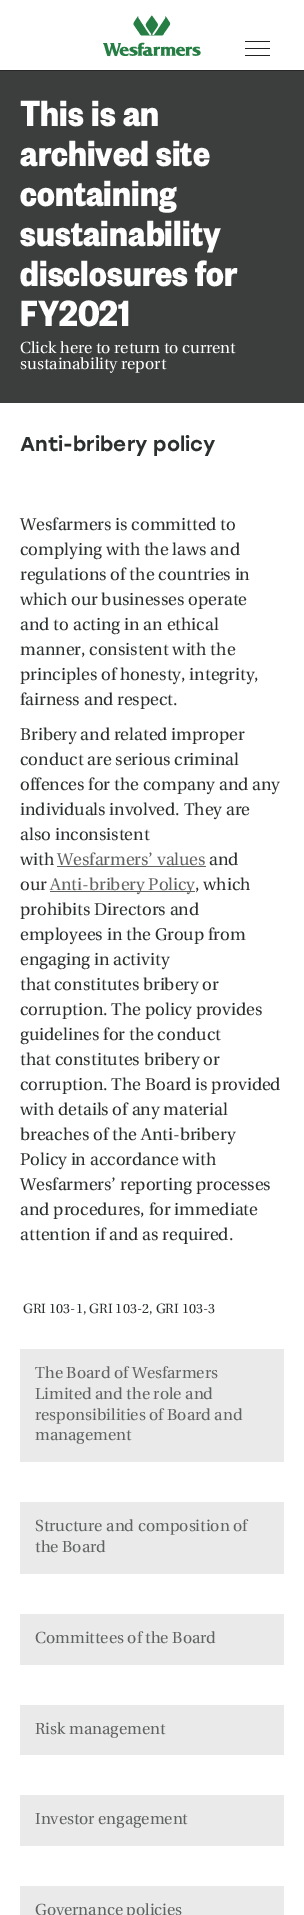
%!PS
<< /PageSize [304 1915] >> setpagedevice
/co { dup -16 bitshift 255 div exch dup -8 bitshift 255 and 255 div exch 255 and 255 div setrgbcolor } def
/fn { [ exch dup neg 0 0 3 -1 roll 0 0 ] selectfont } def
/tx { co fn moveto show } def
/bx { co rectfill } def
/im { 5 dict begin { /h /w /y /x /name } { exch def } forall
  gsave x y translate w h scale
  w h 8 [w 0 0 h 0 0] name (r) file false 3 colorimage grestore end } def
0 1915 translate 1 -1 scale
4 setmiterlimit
0 0 304 1915 16#FFFFFF bx
0 70 304 1 16#282828 bx
(media/1.raw) 103 15 98 42 im
245 48 25 1 16#222222 bx
245 41 25 1 16#222222 bx
245 55 25 1 16#222222 bx
0 71 304 332 16#3C3E3E bx
57 866 149 1 16#616363 bx
50 891 145 1 16#616363 bx
20 1349 264 113 16#EAEAEA bx
20 1502 264 72 16#EAEAEA bx
20 1614 264 51 16#EAEAEA bx
20 1705 264 50 16#EAEAEA bx
20 1795 264 51 16#EAEAEA bx
20 1886 264 29 16#EAEAEA bx
(This is an) 20 126 /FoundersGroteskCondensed-Bold 40 16#FFFFFF tx
(archived site) 20 166 /FoundersGroteskCondensed-Bold 40 16#FFFFFF tx
(containing) 20 206 /FoundersGroteskCondensed-Bold 40 16#FFFFFF tx
(sustainability) 20 246 /FoundersGroteskCondensed-Bold 40 16#FFFFFF tx
(disclosures for) 20 286 /FoundersGroteskCondensed-Bold 40 16#FFFFFF tx
(FY2021) 20 326 /FoundersGroteskCondensed-Bold 40 16#FFFFFF tx
(Click here to return to current) 20 353 /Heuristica-Regular 16 16#FFFFFF tx
(sustainability report) 20 369 /Heuristica-Regular 16 16#FFFFFF tx
(Anti-bribery policy) 20 451 /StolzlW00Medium-Medium 20 16#2C2F2F tx
(Wesfarmers is committed to) 20 530 /Heuristica-Regular 17 16#2C2F2F tx
(complying with the laws and) 20 555 /Heuristica-Regular 17 16#2C2F2F tx
(regulations of the countries in) 20 580 /Heuristica-Regular 17 16#2C2F2F tx
(which our businesses operate) 20 605 /Heuristica-Regular 17 16#2C2F2F tx
(and to acting in an ethical) 20 630 /Heuristica-Regular 17 16#2C2F2F tx
(manner, consistent with the) 20 655 /Heuristica-Regular 17 16#2C2F2F tx
(principles of honesty, integrity,) 20 680 /Heuristica-Regular 17 16#2C2F2F tx
(fairness and respect.) 20 705 /Heuristica-Regular 17 16#2C2F2F tx
(Bribery and related improper) 20 740 /Heuristica-Regular 17 16#2C2F2F tx
(conduct are serious criminal) 20 765 /Heuristica-Regular 17 16#2C2F2F tx
(offences for the company and any) 20 790 /Heuristica-Regular 17 16#2C2F2F tx
(individuals involved. They are) 20 815 /Heuristica-Regular 17 16#2C2F2F tx
(also inconsistent) 20 840 /Heuristica-Regular 17 16#2C2F2F tx
(with) 20 865 /Heuristica-Regular 17 16#2C2F2F tx
(Wesfarmers’ values) 57 865 /Heuristica-Regular 17 16#616363 tx
(and) 209 865 /Heuristica-Regular 17 16#2C2F2F tx
(our) 20 890 /Heuristica-Regular 17 16#2C2F2F tx
(Anti-bribery Policy) 50 890 /Heuristica-Regular 17 16#616363 tx
(, which) 195 890 /Heuristica-Regular 17 16#2C2F2F tx
(prohibits Directors and) 20 915 /Heuristica-Regular 17 16#2C2F2F tx
(employees in the Group from) 20 940 /Heuristica-Regular 17 16#2C2F2F tx
(engaging in activity) 20 965 /Heuristica-Regular 17 16#2C2F2F tx
(that constitutes bribery or) 20 990 /Heuristica-Regular 17 16#2C2F2F tx
(corruption. The policy provides) 20 1015 /Heuristica-Regular 17 16#2C2F2F tx
(guidelines for the conduct) 20 1040 /Heuristica-Regular 17 16#2C2F2F tx
(that constitutes bribery or) 20 1065 /Heuristica-Regular 17 16#2C2F2F tx
(corruption. The Board is provided) 20 1090 /Heuristica-Regular 17 16#2C2F2F tx
(with details of any material) 20 1115 /Heuristica-Regular 17 16#2C2F2F tx
(breaches of the Anti-bribery) 20 1140 /Heuristica-Regular 17 16#2C2F2F tx
(Policy in accordance with) 20 1165 /Heuristica-Regular 17 16#2C2F2F tx
(Wesfarmers’ reporting processes) 20 1190 /Heuristica-Regular 17 16#2C2F2F tx
(and procedures, for immediate) 20 1215 /Heuristica-Regular 17 16#2C2F2F tx
(attention if and as required.) 20 1240 /Heuristica-Regular 17 16#2C2F2F tx
(GRI 103-1, GRI 103-2, GRI 103-3) 23 1313 /Heuristica-Regular 13.4 16#2C2F2F tx
(The Board of Wesfarmers) 35 1378 /Heuristica-Regular 16 16#616363 tx
(Limited and the role and) 35 1399 /Heuristica-Regular 16 16#616363 tx
(responsibilities of Board and) 35 1420 /Heuristica-Regular 16 16#616363 tx
(management) 35 1440 /Heuristica-Regular 16 16#616363 tx
(Structure and composition of) 35 1531 /Heuristica-Regular 16 16#616363 tx
(the Board) 35 1552 /Heuristica-Regular 16 16#616363 tx
(Committees of the Board) 35 1643 /Heuristica-Regular 16 16#616363 tx
(Risk management) 35 1734 /Heuristica-Regular 16 16#616363 tx
(Investor engagement) 35 1824 /Heuristica-Regular 16 16#616363 tx
(Governance policies) 35 1915 /Heuristica-Regular 16 16#616363 tx
showpage
